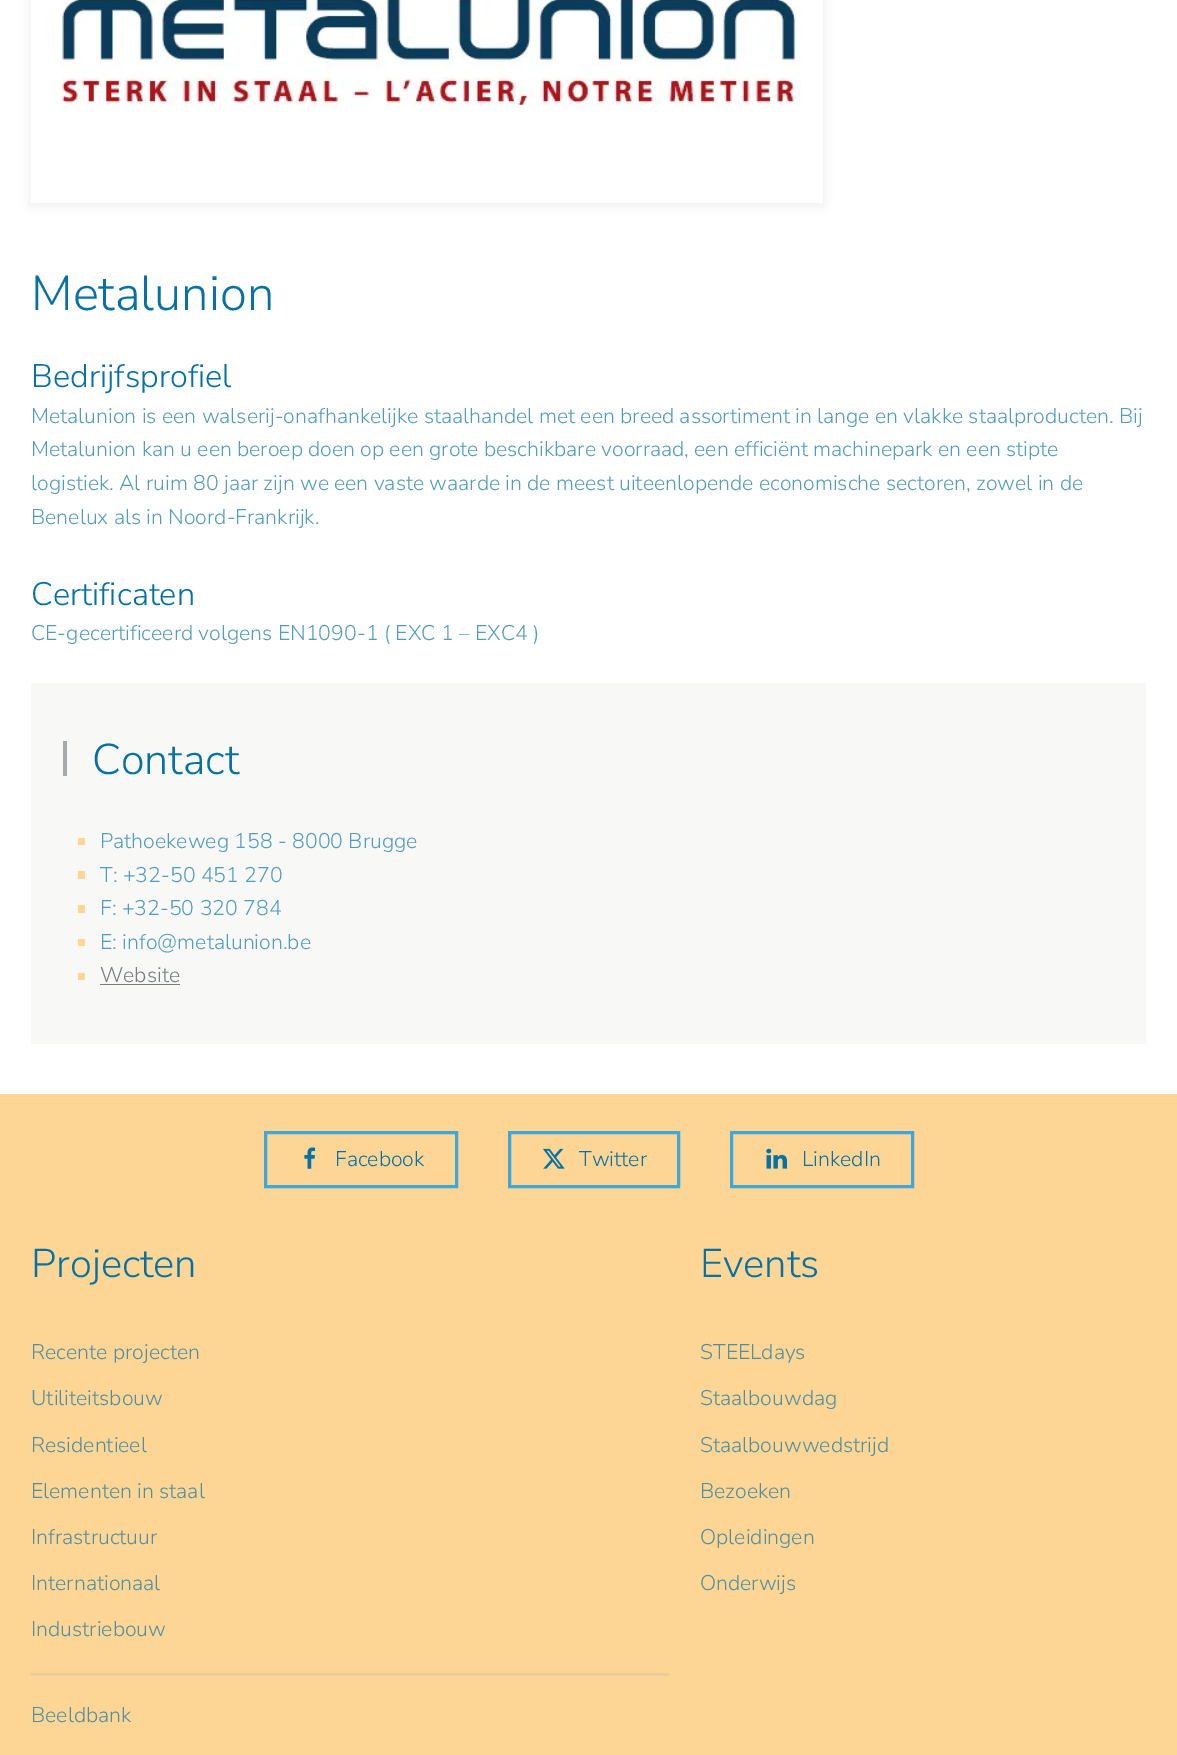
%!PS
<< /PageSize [1177 1755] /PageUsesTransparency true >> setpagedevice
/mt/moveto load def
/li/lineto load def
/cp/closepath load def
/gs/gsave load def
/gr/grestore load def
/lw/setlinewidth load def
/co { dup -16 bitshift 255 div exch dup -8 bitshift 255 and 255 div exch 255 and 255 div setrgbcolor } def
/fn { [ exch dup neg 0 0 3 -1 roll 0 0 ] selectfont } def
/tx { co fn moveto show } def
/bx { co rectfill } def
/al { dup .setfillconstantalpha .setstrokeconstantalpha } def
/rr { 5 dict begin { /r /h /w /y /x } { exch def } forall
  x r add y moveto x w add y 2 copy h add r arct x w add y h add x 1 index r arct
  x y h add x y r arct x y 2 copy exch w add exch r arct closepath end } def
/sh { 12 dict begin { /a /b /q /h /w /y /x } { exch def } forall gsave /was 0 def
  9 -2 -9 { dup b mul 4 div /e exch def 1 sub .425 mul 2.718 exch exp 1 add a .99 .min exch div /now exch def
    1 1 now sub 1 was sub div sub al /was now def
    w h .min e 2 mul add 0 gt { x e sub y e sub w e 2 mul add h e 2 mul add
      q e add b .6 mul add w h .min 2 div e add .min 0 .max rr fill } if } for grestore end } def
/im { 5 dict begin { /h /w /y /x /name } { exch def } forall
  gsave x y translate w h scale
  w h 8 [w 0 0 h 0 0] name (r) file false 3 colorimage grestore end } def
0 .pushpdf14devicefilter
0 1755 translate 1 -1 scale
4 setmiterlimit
0 0 1177 1755 16#FFFFFF bx
gs
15 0 mt 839 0 li 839 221 li 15 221 li cp 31 -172 mt 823 -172 li 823 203 li 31 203 li cp eoclip newpath
16#071B25 co
31 -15 792 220 0 5 .08 sh
gr
(media/1.raw) 61 0 741 108 im
31 683 1115 361 16#F8F8F7 bx
63 741 4 35 16#A7AAAB bx
78 838 7 7 16#FDD594 bx
78 871 7 8 16#FDD594 bx
78 905 7 8 16#FDD594 bx
78 939 7 7 16#FDD594 bx
78 973 7 7 16#FDD594 bx
100 984 80 1 16#787C7E bx
0 1094 1177 661 16#FDD594 bx
16#3FA7DA co
3 lw
265.5 1132.5 191 54 rectstroke
(media/2.raw) 304 1147 11 22 im
509.5 1132.5 169 54 rectstroke
(media/3.raw) 543 1148 22 21 im
731.5 1132.5 181 54 rectstroke
(media/4.raw) 766 1148 22 21 im
31 1673 638 3 16#EBCC96 bx
(Metalunion) 31 310 /NunitoSans-ExtraLight 49 16#0671A5 tx
(Bedrijfsprofiel) 31 387 /NunitoSans-ExtraLight 32.5 16#0671A5 tx
(Metalunion is een walserij-onafhankelijke staalhandel met een breed assortiment in lange en vlakke staalproducten. Bij) 31 423 /NunitoSans-ExtraLight 21.25 16#519CC0 tx
(Metalunion kan u een beroep doen op een grote beschikbare voorraad, een efficiënt machinepark en een stipte) 31 456 /NunitoSans-ExtraLight 21.25 16#519CC0 tx
(logistiek. Al ruim 80 jaar zijn we een vaste waarde in de meest uiteenlopende economische sectoren, zowel in de) 31 490 /NunitoSans-ExtraLight 21.25 16#519CC0 tx
(Benelux als in Noord-Frankrijk.) 31 524 /NunitoSans-ExtraLight 21.25 16#519CC0 tx
(Certificaten) 31 605 /NunitoSans-ExtraLight 32.5 16#0671A5 tx
(CE-gecertificeerd volgens EN1090-1 \( EXC 1 – EXC4 \)) 31 640 /NunitoSans-ExtraLight 21.25 16#519CC0 tx
(Contact) 92 774 /NunitoSans-ExtraLight 43 16#0671A5 tx
(Pathoekeweg 158 - 8000 Brugge) 100 848 /NunitoSans-ExtraLight 21.25 16#519CC0 tx
(T: +32-50 451 270) 100 882 /NunitoSans-ExtraLight 21.25 16#519CC0 tx
(F: +32-50 320 784) 100 915 /NunitoSans-ExtraLight 21.25 16#519CC0 tx
(E: info@metalunion.be) 100 949 /NunitoSans-ExtraLight 21.25 16#519CC0 tx
(Website) 100 982 /NunitoSans-ExtraLight 21.25 16#787C7E tx
(Facebook) 335 1166 /NunitoSans-ExtraLight 21.25 16#0671A5 tx
(Twitter) 579 1166 /NunitoSans-ExtraLight 21.25 16#0671A5 tx
(LinkedIn) 802 1166 /NunitoSans-ExtraLight 21.25 16#0671A5 tx
(Projecten) 31 1277 /NunitoSans-ExtraLight 40 16#0671A5 tx
(Recente projecten) 31 1359 /NunitoSans-ExtraLight 21.25 16#508FA0 tx
(Utiliteitsbouw) 31 1405 /NunitoSans-ExtraLight 21.25 16#508FA0 tx
(Residentieel) 31 1452 /NunitoSans-ExtraLight 21.25 16#508FA0 tx
(Elementen in staal) 31 1498 /NunitoSans-ExtraLight 21.25 16#508FA0 tx
(Infrastructuur) 31 1544 /NunitoSans-ExtraLight 21.25 16#508FA0 tx
(Internationaal) 31 1590 /NunitoSans-ExtraLight 21.25 16#508FA0 tx
(Industriebouw) 31 1636 /NunitoSans-ExtraLight 21.25 16#508FA0 tx
(Beeldbank) 31 1722 /NunitoSans-ExtraLight 21.25 16#508FA0 tx
(Events) 700 1277 /NunitoSans-ExtraLight 40 16#0671A5 tx
(STEELdays) 700 1359 /NunitoSans-ExtraLight 21.25 16#508FA0 tx
(Staalbouwdag) 700 1405 /NunitoSans-ExtraLight 21.25 16#508FA0 tx
(Staalbouwwedstrijd) 700 1452 /NunitoSans-ExtraLight 21.25 16#508FA0 tx
(Bezoeken) 700 1498 /NunitoSans-ExtraLight 21.25 16#508FA0 tx
(Opleidingen) 700 1544 /NunitoSans-ExtraLight 21.25 16#508FA0 tx
(Onderwijs) 700 1590 /NunitoSans-ExtraLight 21.25 16#508FA0 tx
.poppdf14devicefilter showpage
